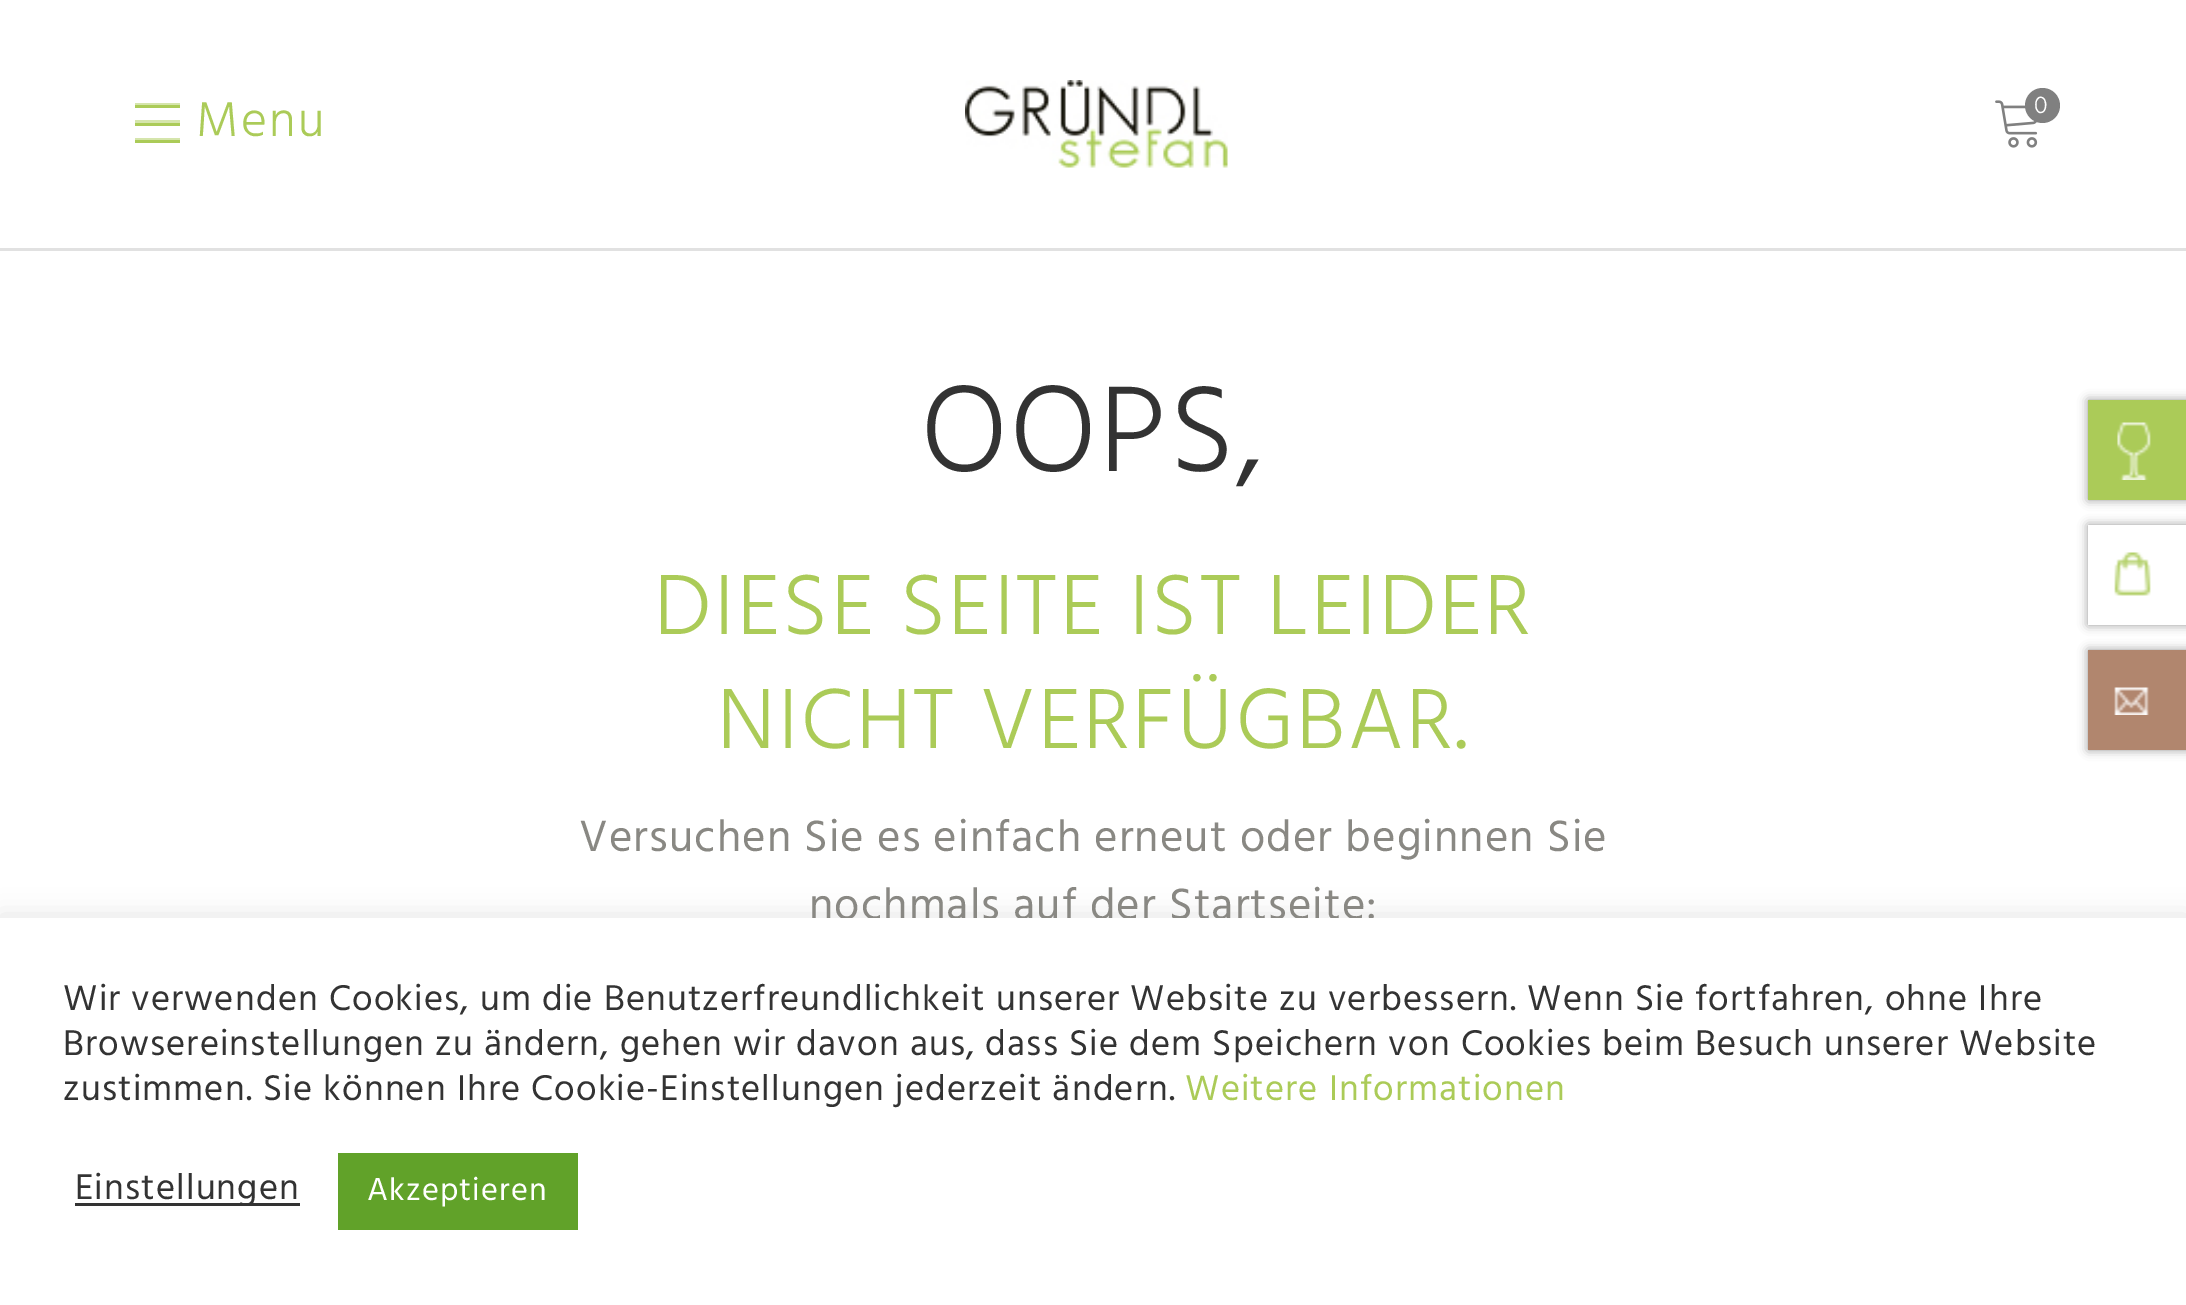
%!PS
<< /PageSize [2186 1305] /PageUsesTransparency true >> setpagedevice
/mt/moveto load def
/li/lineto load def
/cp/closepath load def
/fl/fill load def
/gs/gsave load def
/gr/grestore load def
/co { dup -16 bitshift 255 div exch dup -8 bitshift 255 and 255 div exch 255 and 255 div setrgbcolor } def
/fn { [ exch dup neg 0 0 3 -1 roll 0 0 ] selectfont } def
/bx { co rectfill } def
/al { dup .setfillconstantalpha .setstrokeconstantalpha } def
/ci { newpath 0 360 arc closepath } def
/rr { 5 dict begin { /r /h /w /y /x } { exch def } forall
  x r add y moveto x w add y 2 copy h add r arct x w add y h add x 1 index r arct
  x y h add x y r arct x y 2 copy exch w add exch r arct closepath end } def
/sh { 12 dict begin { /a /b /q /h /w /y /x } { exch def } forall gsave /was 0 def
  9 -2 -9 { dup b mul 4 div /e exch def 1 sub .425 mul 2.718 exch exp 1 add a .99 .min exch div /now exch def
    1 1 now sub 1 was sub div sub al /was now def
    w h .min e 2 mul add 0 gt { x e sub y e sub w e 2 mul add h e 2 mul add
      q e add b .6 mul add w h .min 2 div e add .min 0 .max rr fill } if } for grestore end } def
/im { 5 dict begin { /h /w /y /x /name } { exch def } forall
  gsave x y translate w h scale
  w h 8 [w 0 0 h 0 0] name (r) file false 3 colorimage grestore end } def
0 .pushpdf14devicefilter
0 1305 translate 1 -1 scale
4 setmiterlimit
0 0 2186 1305 16#FFFFFF bx
135 138 45 2 16#D5E5AC bx
135 103 45 2 16#D5E5AC bx
0 248 2186 3 16#E1E1E1 bx
135 105 45 3 16#ABCB58 bx
135 123 45 3 16#ABCB58 bx
135 120 45 3 16#D5E5AC bx
135 140 45 3 16#ABCB58 bx
(media/1.raw) 965 80 263 88 im
(media/2.raw) 1995 100 43 48 im
16#808080 co
2042.5 105.5 17.5 ci fl
16#000000 co
2088 400 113 100 0 5 .4 sh
2088 400 98 100 16#ABCB58 bx
(media/3.raw) 2117 422 34 58 im
gs
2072 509 mt 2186 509 li 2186 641 li 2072 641 li cp 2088 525 mt 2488 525 li 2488 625 li 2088 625 li cp eoclip newpath
16#000000 co
2088 525 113 100 0 5 .4 sh
gr
(media/4.raw) 2114 552 37 44 im
16#000000 co
2088 650 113 100 0 5 .4 sh
2088 650 98 100 16#B1866E bx
(media/5.raw) 2114 687 35 28 im
16#ACABAB co
0 915 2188 388 0 12.5 .3 sh
/Hind-Light 50 fn
16#ABCB58 co
196 136 mt 2.5 0 (Menu) ashow
/Hind-Light 25 fn
16#FFFFFF co
2034 113 mt 1.12 0 (0) ashow
/Hind-Light 125 fn
16#333333 co
921 471 mt 2.5 0 (OOPS,) ashow
/Hind-Light 87.5 fn
16#ABCB58 co
654 634 mt 2.5 0 (DIESE SEITE IST LEIDER) ashow
717 748 mt 2.5 0 (NICHT VERFÜGBAR.) ashow
/Hind-Regular 45 fn
16#898883 co
579 851 mt 1.12 0 (Versuchen Sie es einfach erneut oder beginnen Sie) ashow
809 919 mt 1.12 0 (nochmals auf der Startseite:) ashow
0 918 2186 387 16#FFFFFF bx
/Hind-Regular 36.67 fn
16#333333 co
63 1010 mt 1.12 0 (Wir verwenden Cookies, um die Benutzerfreundlichkeit unserer Website zu verbessern. Wenn Sie fortfahren, ohne Ihre) ashow
63 1055 mt 1.12 0 (Browsereinstellungen zu ändern, gehen wir davon aus, dass Sie dem Speichern von Cookies beim Besuch unserer Website) ashow
63 1100 mt 1.12 0 (zustimmen. Sie können Ihre Cookie-Einstellungen jederzeit ändern.) ashow
16#ABCB58 co
1185 1100 mt 1.12 0 (Weitere Informationen) ashow
75 1203 225 3 16#333333 bx
75 1199 mt 1.12 0 (Einstellungen) ashow
338 1153 240 77 16#61A229 bx
/Hind-Regular 32.5 fn
16#FFFFFF co
367 1200 mt 1.12 0 (Akzeptieren) ashow
.poppdf14devicefilter showpage
